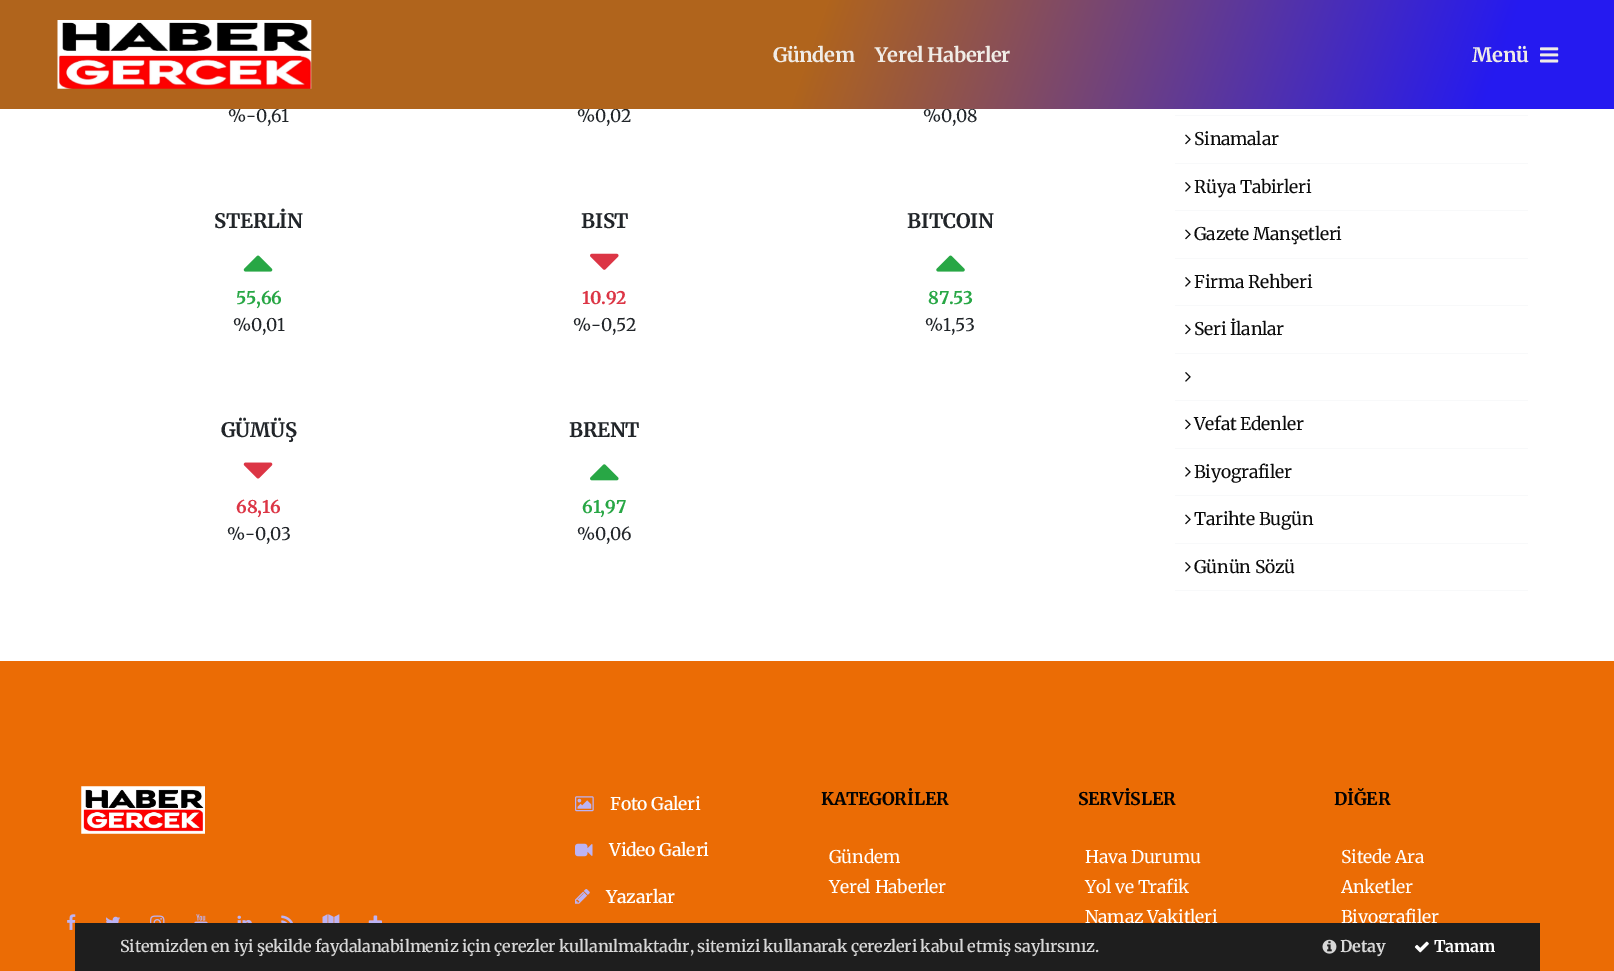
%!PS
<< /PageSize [1614 971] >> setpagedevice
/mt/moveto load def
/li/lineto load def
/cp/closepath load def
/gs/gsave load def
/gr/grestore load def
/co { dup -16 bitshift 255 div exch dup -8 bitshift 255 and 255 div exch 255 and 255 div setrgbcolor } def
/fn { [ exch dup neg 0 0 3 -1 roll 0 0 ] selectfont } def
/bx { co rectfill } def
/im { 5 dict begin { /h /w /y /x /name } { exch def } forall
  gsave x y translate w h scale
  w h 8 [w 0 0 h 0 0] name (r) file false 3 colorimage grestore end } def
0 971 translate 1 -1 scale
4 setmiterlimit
0 0 1614 971 16#FFFFFF bx
(media/3.raw) 243 255 30 17 im
(media/4.raw) 590 253 29 17 im
(media/5.raw) 936 255 29 17 im
(media/6.raw) 243 462 30 17 im
(media/7.raw) 590 464 29 17 im
1175 115 353 1 16#F8F9FA bx
1175 163 353 1 16#F8F9FA bx
(media/8.raw) 1185 134 6 11 im
1175 210 353 1 16#F8F9FA bx
(media/9.raw) 1185 182 6 10 im
1175 258 353 1 16#F8F9FA bx
(media/8.raw) 1185 229 6 11 im
1175 305 353 1 16#F8F9FA bx
(media/9.raw) 1185 277 6 10 im
1175 353 353 1 16#F8F9FA bx
(media/8.raw) 1185 324 6 11 im
1175 400 353 1 16#F8F9FA bx
(media/9.raw) 1185 372 6 10 im
1175 448 353 1 16#F8F9FA bx
(media/8.raw) 1185 419 6 11 im
1175 495 353 1 16#F8F9FA bx
(media/9.raw) 1185 467 6 10 im
1175 543 353 1 16#F8F9FA bx
(media/8.raw) 1185 514 6 11 im
1175 590 353 1 16#F8F9FA bx
(media/9.raw) 1185 562 6 10 im
0 661 1614 310 16#EB6C05 bx
(media/10.raw) 81 786 124 48 im
(media/11.raw) 67 914 9 16 im
(media/12.raw) 106 916 15 7 im
(media/13.raw) 150 915 15 8 im
(media/14.raw) 194 914 14 9 im
(media/15.raw) 237 915 15 8 im
(media/16.raw) 281 915 12 8 im
(media/17.raw) 322 914 18 9 im
(media/18.raw) 368 915 14 8 im
(media/19.raw) 575 796 19 16 im
(media/20.raw) 575 843 18 14 im
(media/21.raw) 575 889 15 15 im
/Merriweather-Regular 17.5 fn
16#212529 co
228 122 mt -.24 0 (%-0,61) ashow
577 122 mt -.24 0 (%0,02) ashow
923 122 mt -.24 0 (%0,08) ashow
gs 0 0 mt 1614 0 li 1614 109 li 0 109 li cp clip newpath
<< /ShadingType 2 /ColorSpace /DeviceRGB /Coords [74 -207 1541 316] /Extend [true true] /Function << /FunctionType 3 /Domain [0 1] /Functions [<< /FunctionType 2 /Domain [0 1] /C0 [.69 .392 .11] /C1 [.69 .392 .11] /N 1 >> << /FunctionType 2 /Domain [0 1] /C0 [.69 .392 .11] /C1 [.145 .102 .941] /N 1 >> << /FunctionType 2 /Domain [0 1] /C0 [.145 .102 .941] /C1 [.145 .102 .941] /N 1 >>] /Bounds [.5 .92] /Encode [0 1 0 1 0 1] >> >> shfill gr
/Merriweather-Bold 20 fn
16#F0ECE7 co
875 62 mt -.5 0 (Yerel Haberler) ashow
773 62 mt -.5 0 (Gündem) ashow
(media/2.raw) 1540 47 19 16 im
1472 62 mt -.24 0 (Menü) ashow
(media/1.raw) 57 20 255 69 im
16#212529 co
214 228 mt -.24 0 (STERLİN) ashow
/Merriweather-Bold 17.5 fn
16#28A745 co
236 304 mt -.24 0 (55,66) ashow
/Merriweather-Regular 17.5 fn
16#212529 co
233 331 mt -.24 0 (%0,01) ashow
/Merriweather-Bold 20 fn
581 228 mt -.24 0 (BIST) ashow
/Merriweather-Bold 17.5 fn
16#DC3545 co
582 304 mt -.24 0 (10.92) ashow
/Merriweather-Regular 17.5 fn
16#212529 co
573 331 mt -.24 0 (%-0,52) ashow
/Merriweather-Bold 20 fn
907 228 mt -.24 0 (BITCOIN) ashow
/Merriweather-Bold 17.5 fn
16#28A745 co
928 304 mt -.24 0 (87.53) ashow
/Merriweather-Regular 17.5 fn
16#212529 co
925 331 mt -.24 0 (%1,53) ashow
/Merriweather-Bold 20 fn
221 437 mt -.24 0 (GÜMÜŞ) ashow
/Merriweather-Bold 17.5 fn
16#DC3545 co
236 513 mt -.24 0 (68,16) ashow
/Merriweather-Regular 17.5 fn
16#212529 co
227 540 mt -.24 0 (%-0,03) ashow
/Merriweather-Bold 20 fn
569 437 mt -.24 0 (BRENT) ashow
/Merriweather-Bold 17.5 fn
16#28A745 co
582 513 mt -.24 0 (61,97) ashow
/Merriweather-Regular 17.5 fn
16#212529 co
577 540 mt -.24 0 (%0,06) ashow
16#0B0B0B co
1194 145 mt -.24 0 (Sinamalar) ashow
1194 193 mt -.24 0 (Rüya Tabirleri) ashow
1194 240 mt -.24 0 (Gazete Manşetleri) ashow
1194 288 mt -.24 0 (Firma Rehberi) ashow
1194 335 mt -.24 0 (Seri İlanlar) ashow
1194 430 mt -.24 0 (Vefat Edenler) ashow
1194 478 mt -.24 0 (Biyografiler) ashow
1194 525 mt -.24 0 (Tarihte Bugün) ashow
1194 573 mt -.24 0 (Günün Sözü) ashow
/Merriweather-SemiBold 17.5 fn
16#FFFFFF co
610 810 mt -.24 0 (Foto Galeri) ashow
609 856 mt -.24 0 (Video Galeri) ashow
606 903 mt -.24 0 (Yazarlar) ashow
/Merriweather-Bold 17.5 fn
16#030303 co
821 805 mt -.24 0 (KATEGORİLER) ashow
/Merriweather-Regular 17.5 fn
16#FFFFFF co
829 863 mt -.24 0 (Gündem) ashow
829 893 mt -.24 0 (Yerel Haberler) ashow
/Merriweather-Bold 17.5 fn
16#030303 co
1078 805 mt -.24 0 (SERVİSLER) ashow
/Merriweather-Regular 17.5 fn
16#FFFFFF co
1085 863 mt -.24 0 (Hava Durumu) ashow
1085 893 mt -.24 0 (Yol ve Trafik) ashow
1085 923 mt -.24 0 (Namaz Vakitleri) ashow
/Merriweather-Bold 17.5 fn
16#030303 co
1334 805 mt -.24 0 (DİĞER) ashow
/Merriweather-Regular 17.5 fn
16#FFFFFF co
1341 863 mt -.24 0 (Sitede Ara) ashow
1341 893 mt -.24 0 (Anketler) ashow
1341 923 mt -.24 0 (Biyografiler) ashow
75 923 1465 48 16#1E1E1E bx
/Merriweather-SemiBold 16.25 fn
16#D7D7D7 co
120 952 mt -.24 0 (Sitemizden en iyi şekilde faydalanabilmeniz için çerezler kullanılmaktadır, sitemizi kullanarak çerezleri kabul etmiş saylırsınız.) ashow
(media/22.raw) 1322 939 15 15 im
/Merriweather-Bold 16.25 fn
1340 952 mt -.24 0 (Detay) ashow
(media/23.raw) 1414 941 15 12 im
16#FFFFFF co
1434 952 mt -.24 0 (Tamam) ashow
showpage
